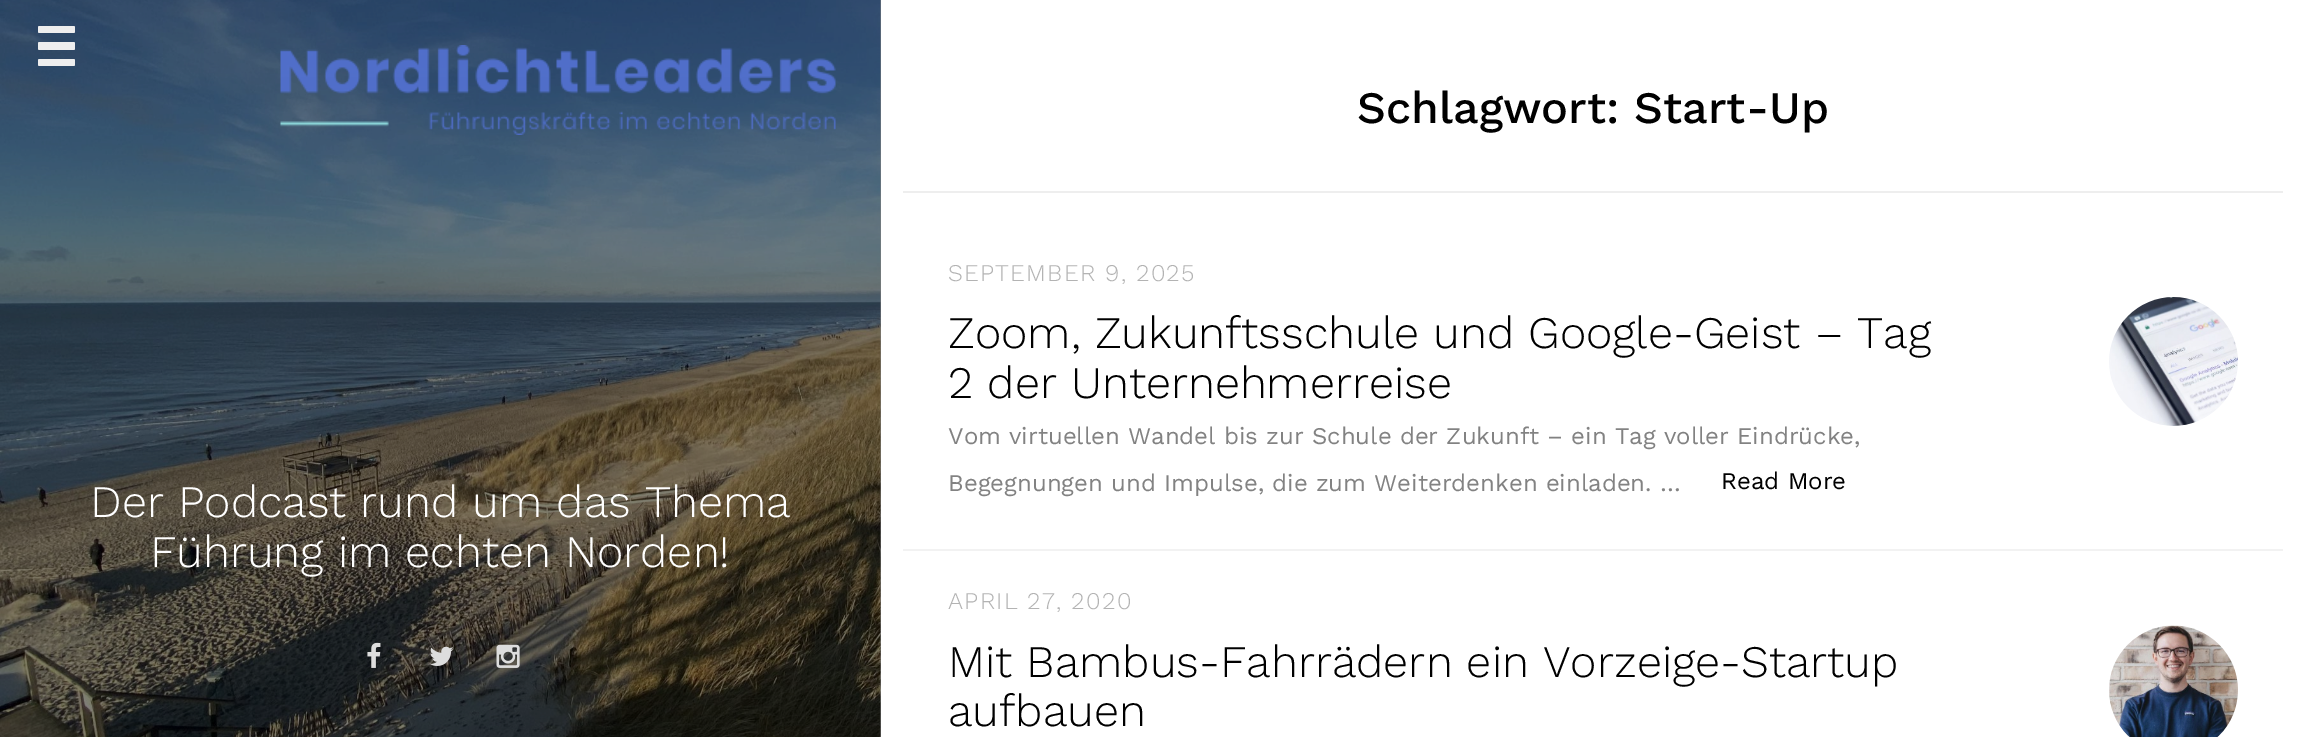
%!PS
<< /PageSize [2305 737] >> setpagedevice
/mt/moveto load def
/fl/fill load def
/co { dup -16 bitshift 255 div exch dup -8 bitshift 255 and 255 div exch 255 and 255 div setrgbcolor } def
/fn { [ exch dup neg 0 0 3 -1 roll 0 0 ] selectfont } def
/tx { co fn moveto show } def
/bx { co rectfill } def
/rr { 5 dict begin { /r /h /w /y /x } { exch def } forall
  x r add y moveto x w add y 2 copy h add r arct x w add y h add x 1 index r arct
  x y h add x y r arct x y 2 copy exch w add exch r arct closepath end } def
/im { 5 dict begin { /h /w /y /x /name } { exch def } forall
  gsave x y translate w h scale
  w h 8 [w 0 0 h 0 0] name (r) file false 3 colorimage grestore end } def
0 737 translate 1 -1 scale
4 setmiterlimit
0 0 2305 737 16#FFFFFF bx
880 0 1 737 16#808080 bx
(media/1.raw) 0 0 881 737 im
16#EEEEEE co
38 42 37 8 1.5 rr fl
38 26 37 7 1.5 rr fl
38 59 37 7 1.5 rr fl
(media/2.raw) 280 45 556 90 im
(media/3.raw) 367 642 14 26 im
(media/4.raw) 429 646 25 20 im
(media/5.raw) 496 644 24 24 im
903 191 1380 2 16#EEEEEE bx
903 549 1380 2 16#F2F2F2 bx
(media/6.raw) 2109 297 129 129 im
(media/7.raw) 2109 625 129 112 im
(Der Podcast rund um das Thema) 90 517 /WorkSans-Light 45 16#FFFFFF tx
(Führung im echten Norden!) 150 567 /WorkSans-Light 45 16#FFFFFF tx
(Schlagwort: Start-Up) 1357 123 /WorkSans-Medium 45 16#000000 tx
/WorkSans-Light 24 fn
16#B3B3B3 co
948 281 mt 1.25 0 (SEPTEMBER 9, 2025) ashow
(Zoom, Zukunftsschule und Google-Geist – Tag) 948 348 /WorkSans-Light 45 16#000000 tx
(2 der Unternehmerreise) 948 398 /WorkSans-Light 45 16#000000 tx
(Vom virtuellen Wandel bis zur Schule der Zukunft – ein Tag voller Eindrücke,) 948 444 /WorkSans-Regular 24 16#828282 tx
(Begegnungen und Impulse, die zum Weiterdenken einladen. …) 948 491 /WorkSans-Regular 24 16#828282 tx
(Read More) 1721 489 /WorkSans-Regular 24 16#000000 tx
/WorkSans-Light 24 fn
16#B3B3B3 co
948 609 mt 1.25 0 (APRIL 27, 2020) ashow
(Mit Bambus-Fahrrädern ein Vorzeige-Startup) 948 677 /WorkSans-Light 45 16#000000 tx
(aufbauen) 948 726 /WorkSans-Light 45 16#000000 tx
showpage
